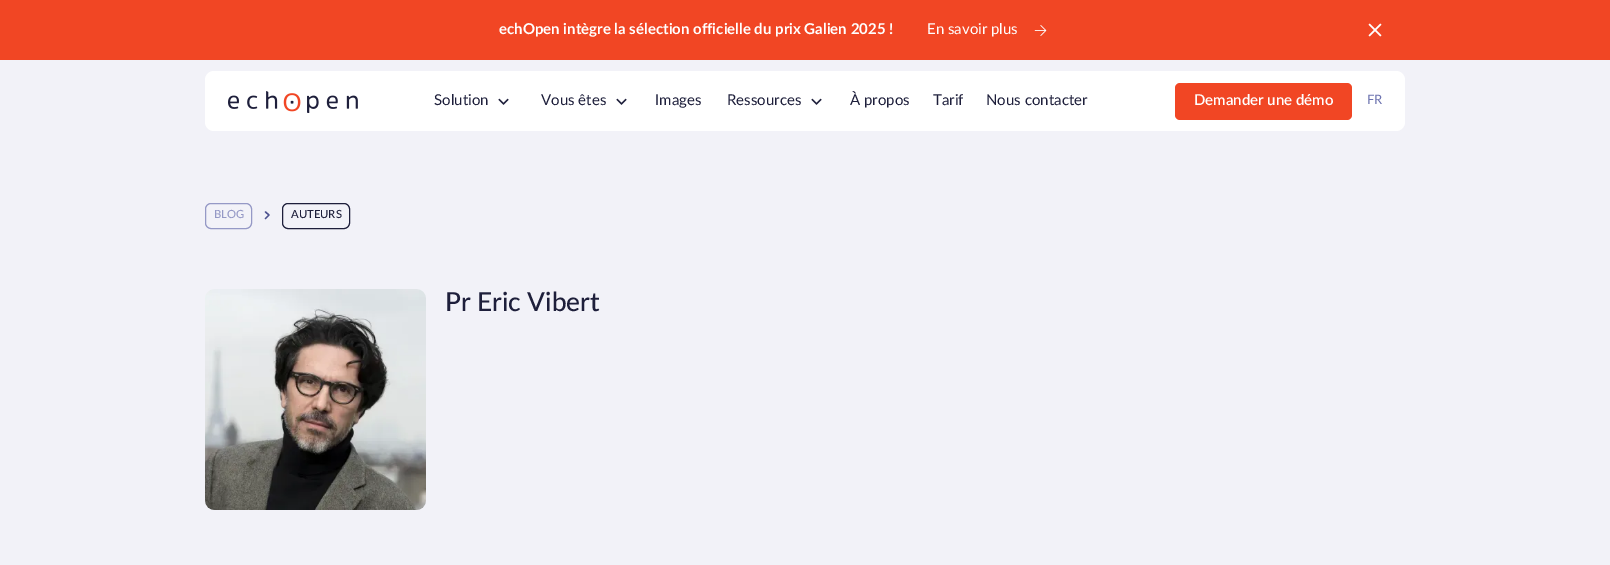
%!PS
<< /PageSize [1610 565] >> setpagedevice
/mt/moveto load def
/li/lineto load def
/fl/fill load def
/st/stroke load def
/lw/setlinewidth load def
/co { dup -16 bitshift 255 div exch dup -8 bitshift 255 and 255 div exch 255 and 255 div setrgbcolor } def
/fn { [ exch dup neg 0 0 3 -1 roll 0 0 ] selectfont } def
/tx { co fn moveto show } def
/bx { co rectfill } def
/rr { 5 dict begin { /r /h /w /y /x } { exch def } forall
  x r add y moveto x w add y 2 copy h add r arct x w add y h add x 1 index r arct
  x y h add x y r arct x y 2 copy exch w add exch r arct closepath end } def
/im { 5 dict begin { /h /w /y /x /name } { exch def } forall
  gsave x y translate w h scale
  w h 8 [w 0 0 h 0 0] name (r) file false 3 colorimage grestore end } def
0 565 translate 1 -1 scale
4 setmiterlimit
0 0 1610 565 16#F2F2F8 bx
0 0 1610 60 16#F14624 bx
(media/1.raw) 1034 25 13 11 im
(media/2.raw) 1368 23 14 14 im
16#FFFFFF co
205 71 1200 60 9 rr fl
(media/3.raw) 228 91 130 22 im
(media/4.raw) 498 98 11 7 im
(media/4.raw) 616 98 11 7 im
(media/4.raw) 811 98 11 7 im
16#F14624 co
1175 83 177 37 5 rr fl
16#9599C6 co
205.5 203.5 46 25 5.5 rr st
16#4E5390 co
1.4 lw
1 setlinecap
1 setlinejoin
265.5 212 mt 269 215 li 265.5 218.5 li st
16#1E1F3B co
1 lw
0 setlinecap
0 setlinejoin
282.5 203.5 67 25 5.5 rr st
(media/5.raw) 205 289 221 221 im
(echOpen intègre la sélection officielle du prix Galien 2025 !) 499 34 /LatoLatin-Bold 15 16#FFFFFF tx
(En savoir plus) 927 34 /LatoLatin-Regular 15 16#FFFFFF tx
(Solution) 434 105 /LatoLatin-Regular 15 16#1E1F3B tx
(Vous êtes) 541 105 /LatoLatin-Regular 15 16#1E1F3B tx
(Images) 655 105 /LatoLatin-Regular 15 16#1E1F3B tx
(Ressources) 727 105 /LatoLatin-Regular 15 16#1E1F3B tx
(À propos) 850 105 /LatoLatin-Regular 15 16#1E1F3B tx
(Tarif) 933 105 /LatoLatin-Regular 15 16#1E1F3B tx
(Nous contacter) 986 105 /LatoLatin-Regular 15 16#1E1F3B tx
(Demander une démo) 1194 105 /LatoLatin-SemiBold 15 16#FFFFFF tx
(FR) 1367 104 /LatoLatin-Regular 13 16#6D73B0 tx
(BLOG) 214 218 /LatoLatin-Medium 11.25 16#9599C6 tx
(AUTEURS) 291 218 /LatoLatin-Medium 11.25 16#1E1F3B tx
(Pr Eric Vibert) 445 311 /LatoLatin-Medium 26.25 16#1E1F3B tx
showpage
